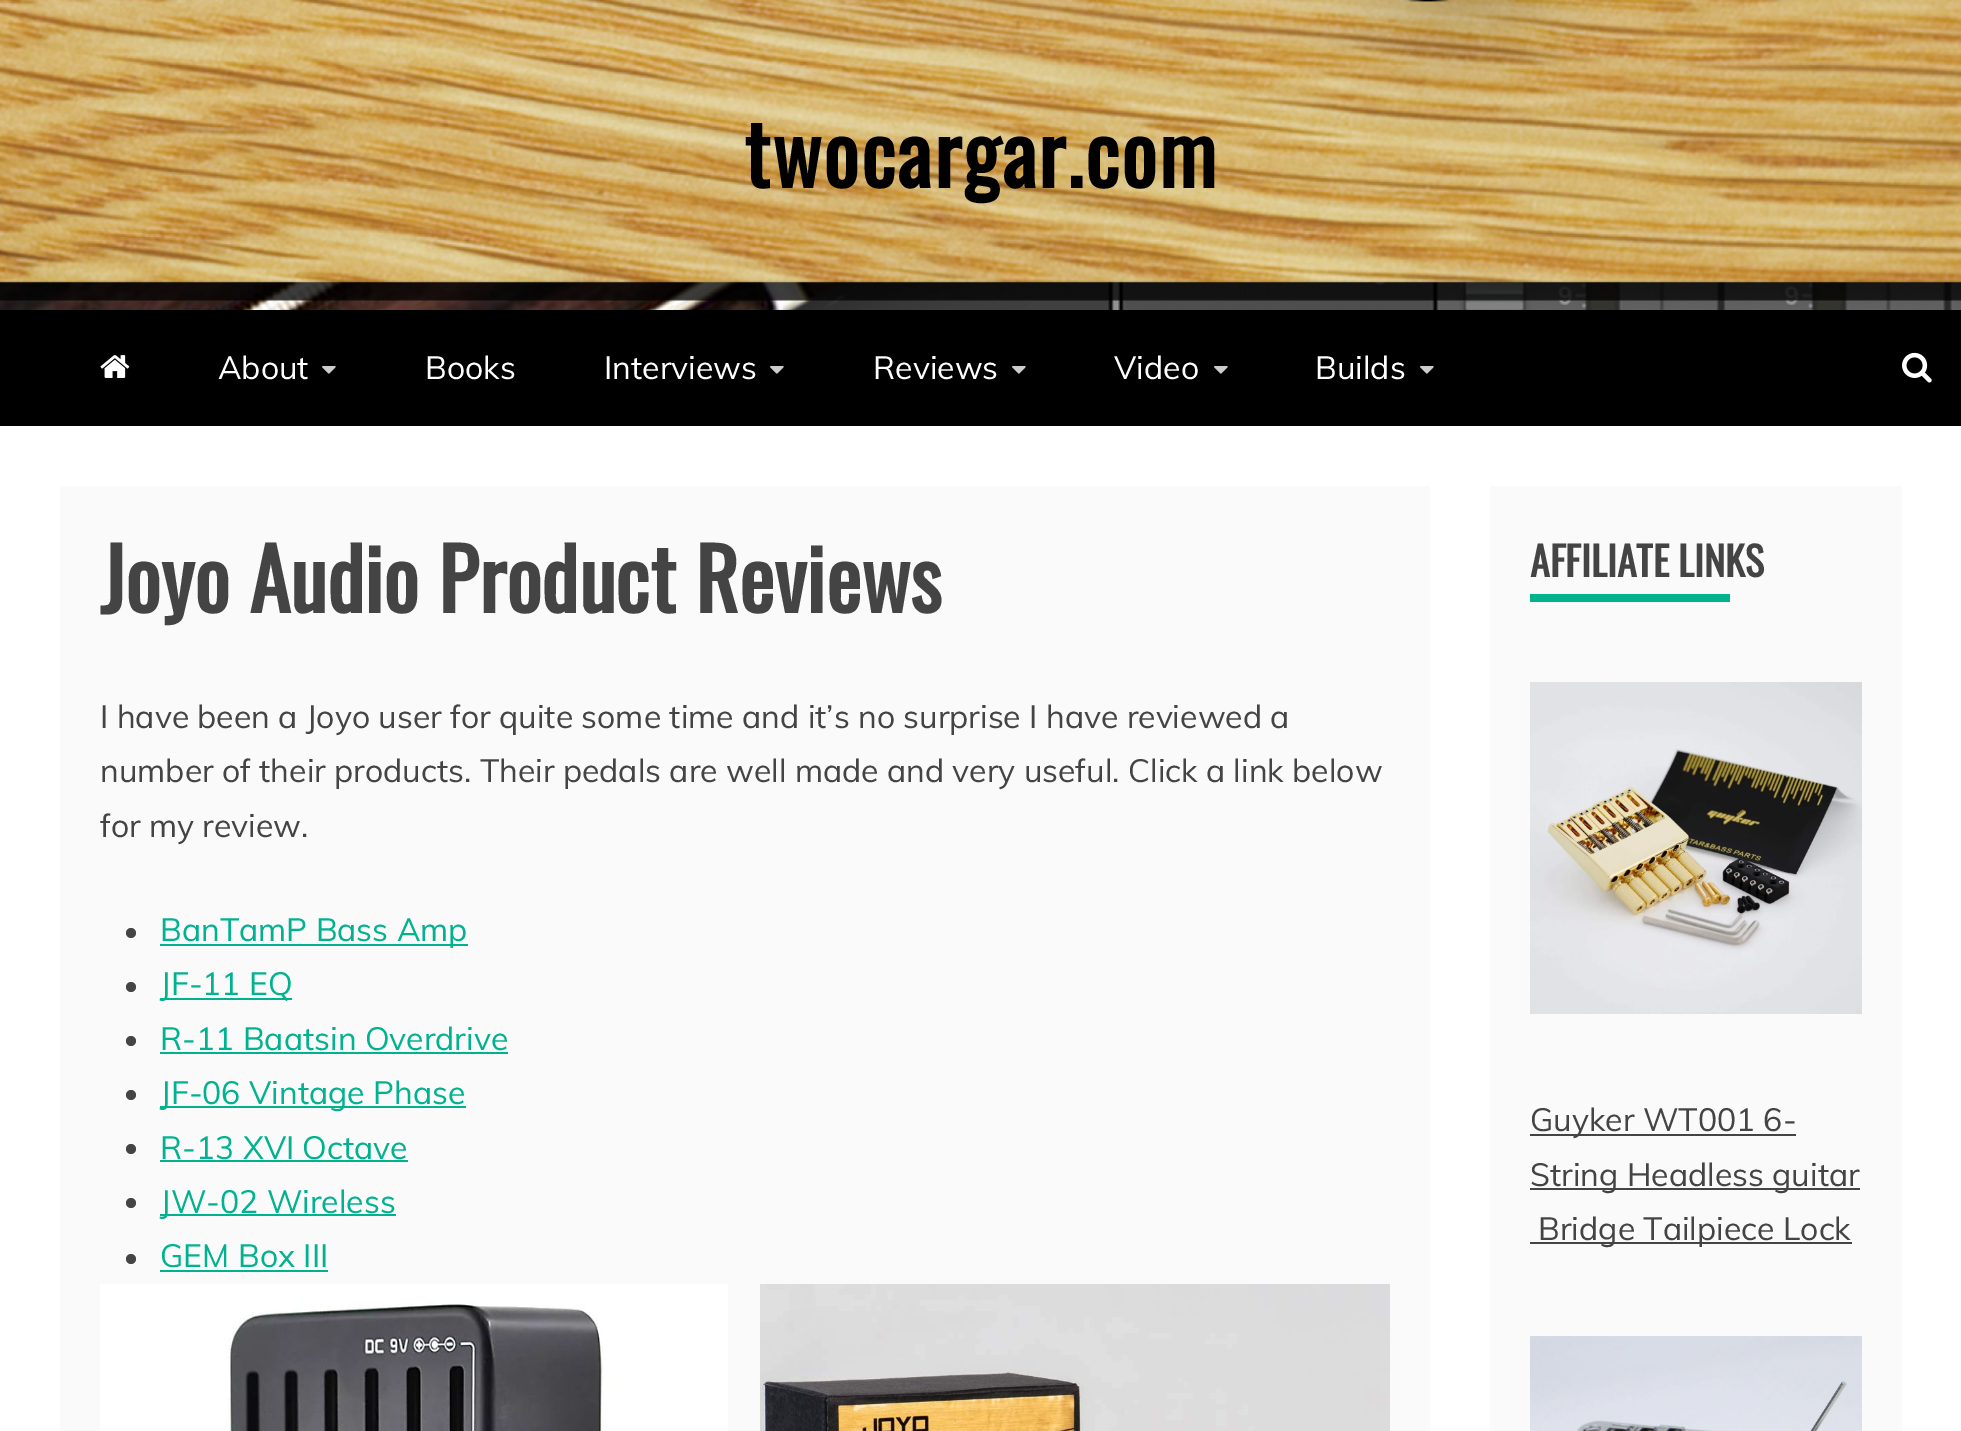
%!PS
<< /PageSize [1961 1431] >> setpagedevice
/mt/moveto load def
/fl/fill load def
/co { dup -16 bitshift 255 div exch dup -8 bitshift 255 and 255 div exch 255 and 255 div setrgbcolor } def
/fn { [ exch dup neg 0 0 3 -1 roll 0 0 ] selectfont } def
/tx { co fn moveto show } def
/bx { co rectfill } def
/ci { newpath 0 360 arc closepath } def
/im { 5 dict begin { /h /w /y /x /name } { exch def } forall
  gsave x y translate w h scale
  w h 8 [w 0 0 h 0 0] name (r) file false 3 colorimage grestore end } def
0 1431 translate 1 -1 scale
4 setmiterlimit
0 0 1961 1431 16#FFFFFF bx
(media/1.raw) 0 0 1961 310 im
0 310 1961 116 16#000000 bx
(media/2.raw) 100 355 30 23 im
(media/3.raw) 322 366 14 8 im
(media/3.raw) 770 366 14 8 im
(media/3.raw) 1012 366 14 8 im
(media/3.raw) 1214 366 14 8 im
(media/3.raw) 1420 366 14 8 im
(media/4.raw) 1902 352 30 31 im
60 486 1370 945 16#FAFAFA bx
16#444444 co
131 933 5 ci fl
160 944 308 2 16#00B28E bx
16#444444 co
131 987 5 ci fl
160 998 132 2 16#00B28E bx
16#444444 co
131 1041 5 ci fl
160 1052 348 2 16#00B28E bx
16#444444 co
131 1095 5 ci fl
160 1106 306 2 16#00B28E bx
16#444444 co
131 1149 5 ci fl
160 1160 248 2 16#00B28E bx
16#444444 co
131 1203 5 ci fl
160 1214 236 2 16#00B28E bx
16#444444 co
131 1259 5 ci fl
160 1270 168 2 16#00B28E bx
(media/5.raw) 100 1284 628 147 im
(media/6.raw) 760 1284 630 147 im
1490 486 412 945 16#FAFAFA bx
1530 594 200 8 16#00B28E bx
(media/7.raw) 1530 682 332 332 im
1530 1134 266 2 16#444444 bx
1530 1188 330 2 16#444444 bx
1530 1242 322 2 16#444444 bx
(media/8.raw) 1530 1336 332 95 im
/Oswald-Bold 84 fn
16#000000 co
744 188 mt 2 0 (twocargar.com) ashow
(About) 218 379 /Muli-Regular 32 16#FFFFFF tx
(Books) 425 379 /Muli-Regular 32 16#FFFFFF tx
(Interviews) 604 379 /Muli-Regular 32 16#FFFFFF tx
(Reviews) 873 379 /Muli-Regular 32 16#FFFFFF tx
(Video) 1114 379 /Muli-Regular 32 16#FFFFFF tx
(Builds) 1315 379 /Muli-Regular 32 16#FFFFFF tx
(Joyo Audio Product Reviews) 100 613 /Oswald-Bold 84 16#444444 tx
(I have been a Joyo user for quite some time and it’s no surprise I have reviewed a) 100 728 /Muli-Regular 32 16#444444 tx
(number of their products. Their pedals are well made and very useful. Click a link below) 100 782 /Muli-Regular 32 16#444444 tx
(for my review.) 100 837 /Muli-Regular 32 16#444444 tx
(BanTamP Bass Amp) 160 941 /Muli-Regular 32 16#00B28E tx
(JF-11 EQ) 160 995 /Muli-Regular 32 16#00B28E tx
(R-11 Baatsin Overdrive) 160 1050 /Muli-Regular 32 16#00B28E tx
(JF-06 Vintage Phase) 160 1104 /Muli-Regular 32 16#00B28E tx
(R-13 XVI Octave) 160 1159 /Muli-Regular 32 16#00B28E tx
(JW-02 Wireless) 160 1213 /Muli-Regular 32 16#00B28E tx
(GEM Box III) 160 1267 /Muli-Regular 32 16#00B28E tx
(AFFILIATE LINKS) 1530 577 /Oswald-Bold 40 16#444444 tx
(Guyker WT001 6-) 1530 1131 /Muli-Regular 32 16#444444 tx
(String Headless guitar) 1530 1186 /Muli-Regular 32 16#444444 tx
(Bridge Tailpiece Lock) 1538 1240 /Muli-Regular 32 16#444444 tx
showpage
